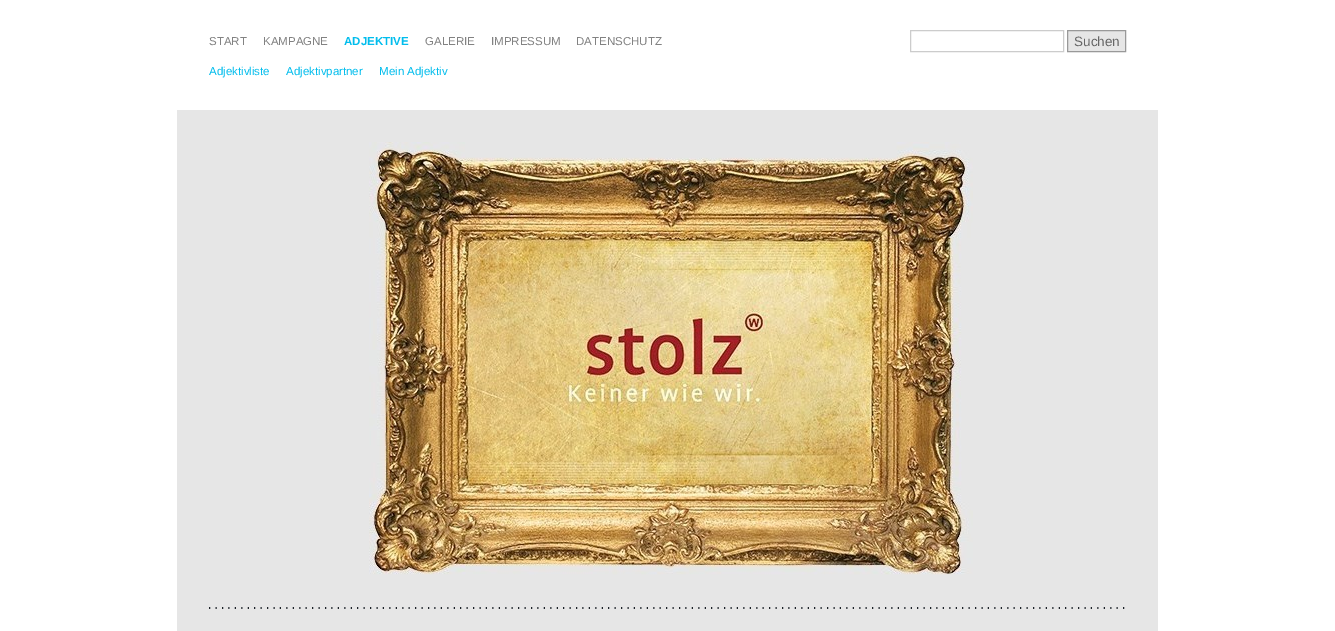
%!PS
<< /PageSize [1335 631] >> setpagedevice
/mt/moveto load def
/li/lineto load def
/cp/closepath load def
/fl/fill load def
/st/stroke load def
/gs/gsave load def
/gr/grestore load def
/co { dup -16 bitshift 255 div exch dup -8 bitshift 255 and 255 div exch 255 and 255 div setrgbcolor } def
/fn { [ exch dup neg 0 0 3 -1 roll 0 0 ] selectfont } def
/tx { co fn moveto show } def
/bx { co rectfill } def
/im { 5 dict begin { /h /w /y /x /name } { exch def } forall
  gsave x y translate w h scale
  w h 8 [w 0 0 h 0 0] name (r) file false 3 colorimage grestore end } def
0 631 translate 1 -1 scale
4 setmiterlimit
0 0 1335 631 16#FFFFFF bx
16#CCCCCC co
910.5 30.5 153 21 rectstroke
16#E6E6E6 co
1067.5 30.5 mt 1125.5 30.5 li 1125.5 51.5 li 1067.5 51.5 li cp gs fl gr
16#999999 co
st
177 110 981 521 16#E6E6E6 bx
(media/1.raw) 369 142 604 433 im
(media/2.raw) 209 607 916 2 im
(START) 209 45 /LiberationSans-Regular 11.5 16#828282 tx
(KAMPAGNE) 263 45 /LiberationSans-Regular 11.5 16#828282 tx
(ADJEKTIVE) 344 45 /LiberationSans-Bold 11.5 16#01BDED tx
(GALERIE) 425 45 /LiberationSans-Regular 11.5 16#828282 tx
(IMPRESSUM) 491 45 /LiberationSans-Regular 11.5 16#828282 tx
(DATENSCHUTZ) 576 45 /LiberationSans-Regular 11.5 16#828282 tx
(Suchen) 1074 46 /LiberationSans-Regular 13.5 16#666666 tx
(Adjektivliste) 209 75 /LiberationSans-Regular 11.5 16#01BDED tx
(Adjektivpartner) 286 75 /LiberationSans-Regular 11.5 16#01BDED tx
(Mein Adjektiv) 379 75 /LiberationSans-Regular 11.5 16#01BDED tx
showpage
